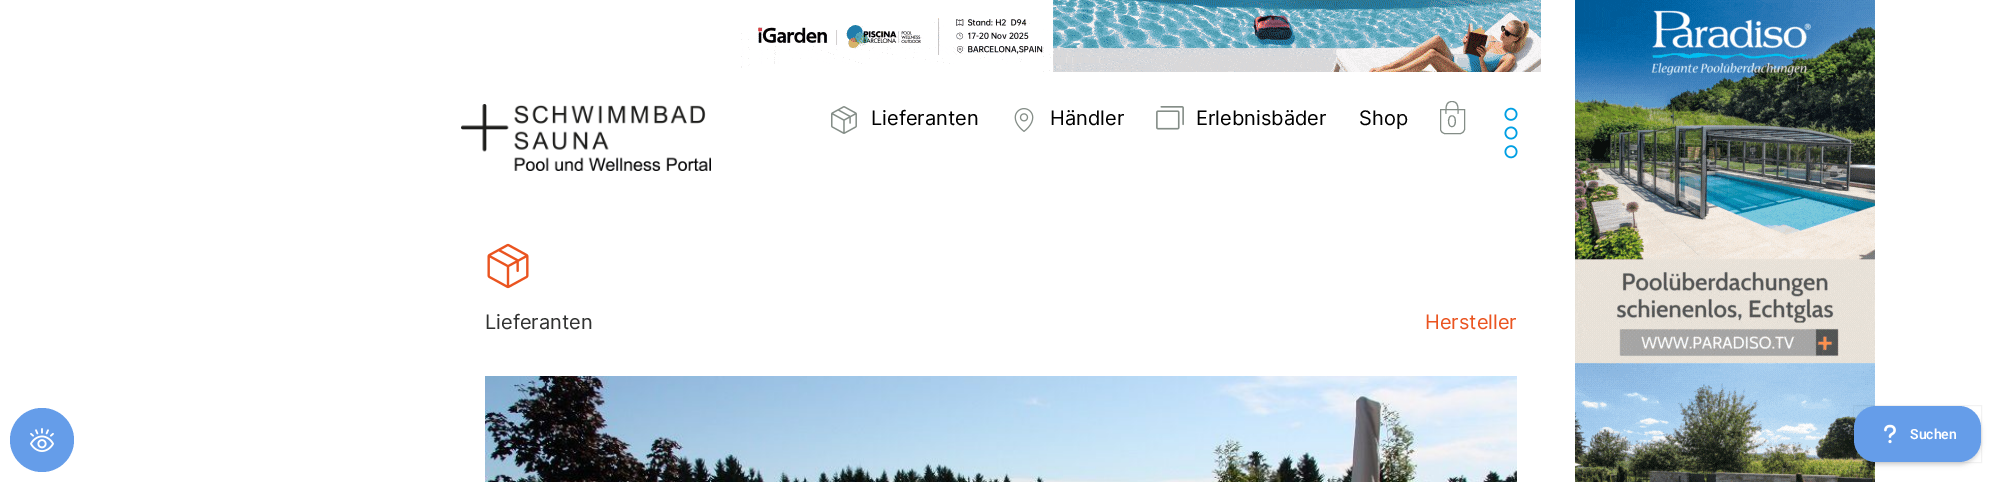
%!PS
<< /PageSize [2001 482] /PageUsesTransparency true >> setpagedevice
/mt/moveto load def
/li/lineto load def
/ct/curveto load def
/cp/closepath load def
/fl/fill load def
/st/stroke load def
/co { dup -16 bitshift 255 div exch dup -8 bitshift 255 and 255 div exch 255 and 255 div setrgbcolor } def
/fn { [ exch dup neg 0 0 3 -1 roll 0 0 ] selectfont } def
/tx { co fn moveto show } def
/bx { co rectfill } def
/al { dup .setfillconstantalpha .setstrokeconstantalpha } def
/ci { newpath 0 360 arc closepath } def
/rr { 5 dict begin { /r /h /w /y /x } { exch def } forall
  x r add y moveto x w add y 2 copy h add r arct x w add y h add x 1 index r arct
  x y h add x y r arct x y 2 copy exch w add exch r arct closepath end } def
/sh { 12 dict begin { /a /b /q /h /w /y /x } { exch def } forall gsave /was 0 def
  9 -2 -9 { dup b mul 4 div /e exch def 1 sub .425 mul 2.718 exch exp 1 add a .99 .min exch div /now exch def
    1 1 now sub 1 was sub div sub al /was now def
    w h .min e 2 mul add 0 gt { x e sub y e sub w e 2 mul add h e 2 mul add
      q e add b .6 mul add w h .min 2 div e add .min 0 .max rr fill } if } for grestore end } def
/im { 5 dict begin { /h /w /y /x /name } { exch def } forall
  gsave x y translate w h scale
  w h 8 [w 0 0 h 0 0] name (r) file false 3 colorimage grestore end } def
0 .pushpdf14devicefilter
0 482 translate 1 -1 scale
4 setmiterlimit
0 0 2001 482 16#FFFFFF bx
(media/1.raw) 741 0 800 72 im
(media/2.raw) 461 104 250 67 im
(media/3.raw) 831 106 26 28 im
(media/4.raw) 1014 108 20 24 im
(media/5.raw) 1156 106 28 24 im
16#848D87 co
1440.5 109.5 mt 1464.5 109.5 li 1464.5 129 li 1464.5 131.5 1462.5 133.5 1460 133.5 ct 1445 133.5 li 1442.5 133.5 1440.5 131.5 1440.5 129 ct cp st
1452 101 mt 1459.5 101 1458.5 109 1458.5 114 ct 1445.5 114 li 1445.5 109 1444.5 101 1452 101 ct cp 1452 102 mt 1458.5 102 1457.5 109.5 1457.5 114 ct 1446.5 114 li 1446.5 109.5 1445.5 102 1452 102 ct cp eofill
(media/6.raw) 1504 107 14 52 im
(media/7.raw) 1575 0 300 482 im
(media/8.raw) 487 243 42 46 im
(media/9.raw) 485 376 1032 106 im
16#659DE9 co
42 440 32 ci fl
(media/10.raw) 30 428 24 24 im
16#000000 co
1854 409 127 56 22 1.5 .05 sh
1854 409 127 56 22 2.5 .1 sh
0.05 al
1853.5 405.5 128 57 rectstroke
1 al
16#659DE9 co
1854 406 127 56 22 rr fl
(media/11.raw) 1884 424 12 20 im
(Lieferanten) 871 125 /Inter-Regular 20 16#000000 tx
(Händler) 1050 125 /Inter-Regular 20 16#000000 tx
(Erlebnisbäder) 1196 125 /Inter-Regular 20 16#000000 tx
(Shop) 1359 125 /Inter-Regular 20 16#000000 tx
(0) 1447 127 /Inter-Regular 16 16#848D87 tx
(Lieferanten) 485 329 /Inter-Regular 20 16#313231 tx
(Hersteller) 1425 329 /Inter-Regular 20 16#EA5420 tx
(Suchen) 1910 439 /Roboto-SemiBold 14 16#FFFFFF tx
.poppdf14devicefilter showpage
